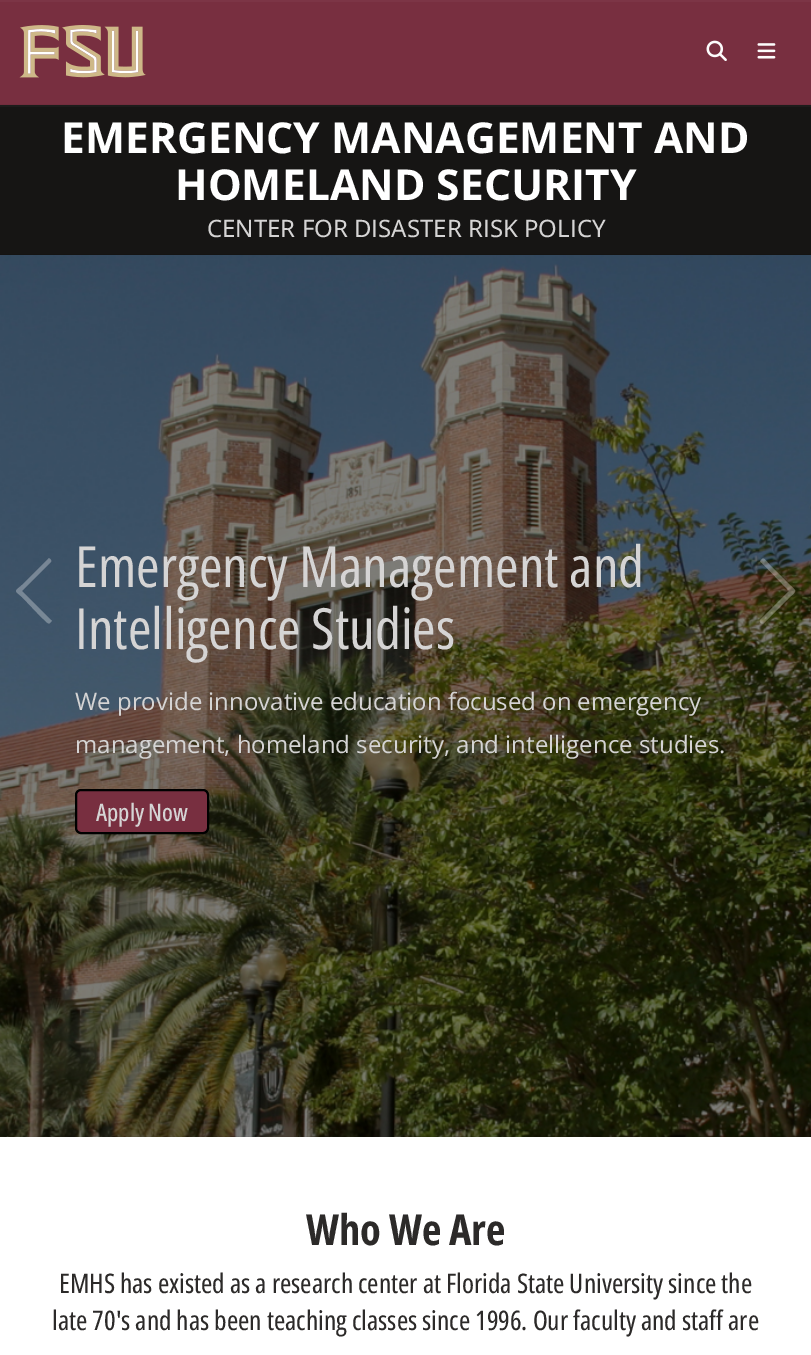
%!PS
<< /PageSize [811 1355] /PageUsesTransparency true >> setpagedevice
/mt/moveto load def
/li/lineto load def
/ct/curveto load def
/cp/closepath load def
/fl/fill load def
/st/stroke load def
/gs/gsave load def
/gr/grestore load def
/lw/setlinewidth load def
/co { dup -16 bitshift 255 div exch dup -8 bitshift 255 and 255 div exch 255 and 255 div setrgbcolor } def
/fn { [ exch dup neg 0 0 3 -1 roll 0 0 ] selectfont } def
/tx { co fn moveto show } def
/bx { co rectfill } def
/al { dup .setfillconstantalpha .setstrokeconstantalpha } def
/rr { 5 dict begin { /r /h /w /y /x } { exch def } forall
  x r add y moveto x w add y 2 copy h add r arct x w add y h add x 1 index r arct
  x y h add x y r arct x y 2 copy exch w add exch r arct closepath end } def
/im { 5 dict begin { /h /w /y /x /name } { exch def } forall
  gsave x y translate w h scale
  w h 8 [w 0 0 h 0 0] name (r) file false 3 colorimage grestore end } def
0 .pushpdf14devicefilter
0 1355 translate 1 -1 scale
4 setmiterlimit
0 0 811 1355 16#782F40 bx
0 0 811 2 16#7C3546 bx
0 104 811 1 16#722D3D bx
(media/1.raw) 19 25 127 53 im
(media/2.raw) 706 40 21 21 im
(media/3.raw) 757 43 19 16 im
0 107 811 147 16#161514 bx
0 105 811 2 16#1D1C1B bx
0 254 811 1 16#141312 bx
(media/4.raw) 0 255 811 882 im
16#782F40 co
76 790 132 43 5 rr gs fl gr
16#000000 co
2 lw
st
0.3 al
16#FFFFFF co
50 623 mt 51 622 li 52 621 52 620 51 620 ct 22 591 li 51 562 li 52 560 49 557 48 559 ct 22 585 li 14 592 14 590 22 597 ct 42 618 li 45 620 48 625 50 623 ct cp fl
762 559 mt 761 560 li 760 561 760 562 761 562 ct 789 591 li 760 620 li 759 622 762 625 764 623 ct 790 597 li 797 590 797 592 790 585 ct 769 564 li 767 562 764 557 762 559 ct cp fl
1 al
0 1137 811 218 16#FFFFFF bx
(EMERGENCY MANAGEMENT AND) 61 153 /OpenSans-Bold 42.6 16#FFFFFF tx
(HOMELAND SECURITY) 175 200 /OpenSans-Bold 42.6 16#FFFFFF tx
(CENTER FOR DISASTER RISK POLICY) 207 237 /OpenSans-Regular 24 16#D5D4D4 tx
(Emergency Management and) 75 587 /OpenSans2-Regular 56.9 16#D5D4D4 tx
(Intelligence Studies) 75 649 /OpenSans2-Regular 56.9 16#D5D4D4 tx
(We provide innovative education focused on emergency) 75 710 /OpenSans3-Regular 24 16#D5D4D4 tx
(management, homeland security, and intelligence studies.) 75 753 /OpenSans3-Regular 24 16#D5D4D4 tx
(Apply Now) 96 821 /OpenSans-Medium 24 16#D5D4D4 tx
(Who We Are) 306 1245 /OpenSans2-Bold 42.6 16#2C2A29 tx
(EMHS has existed as a research center at Florida State University since the) 59 1293 /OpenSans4-Regular 27 16#2C2A29 tx
(late 70's and has been teaching classes since 1996. Our faculty and staff are) 52 1330 /OpenSans4-Regular 27 16#2C2A29 tx
.poppdf14devicefilter showpage
